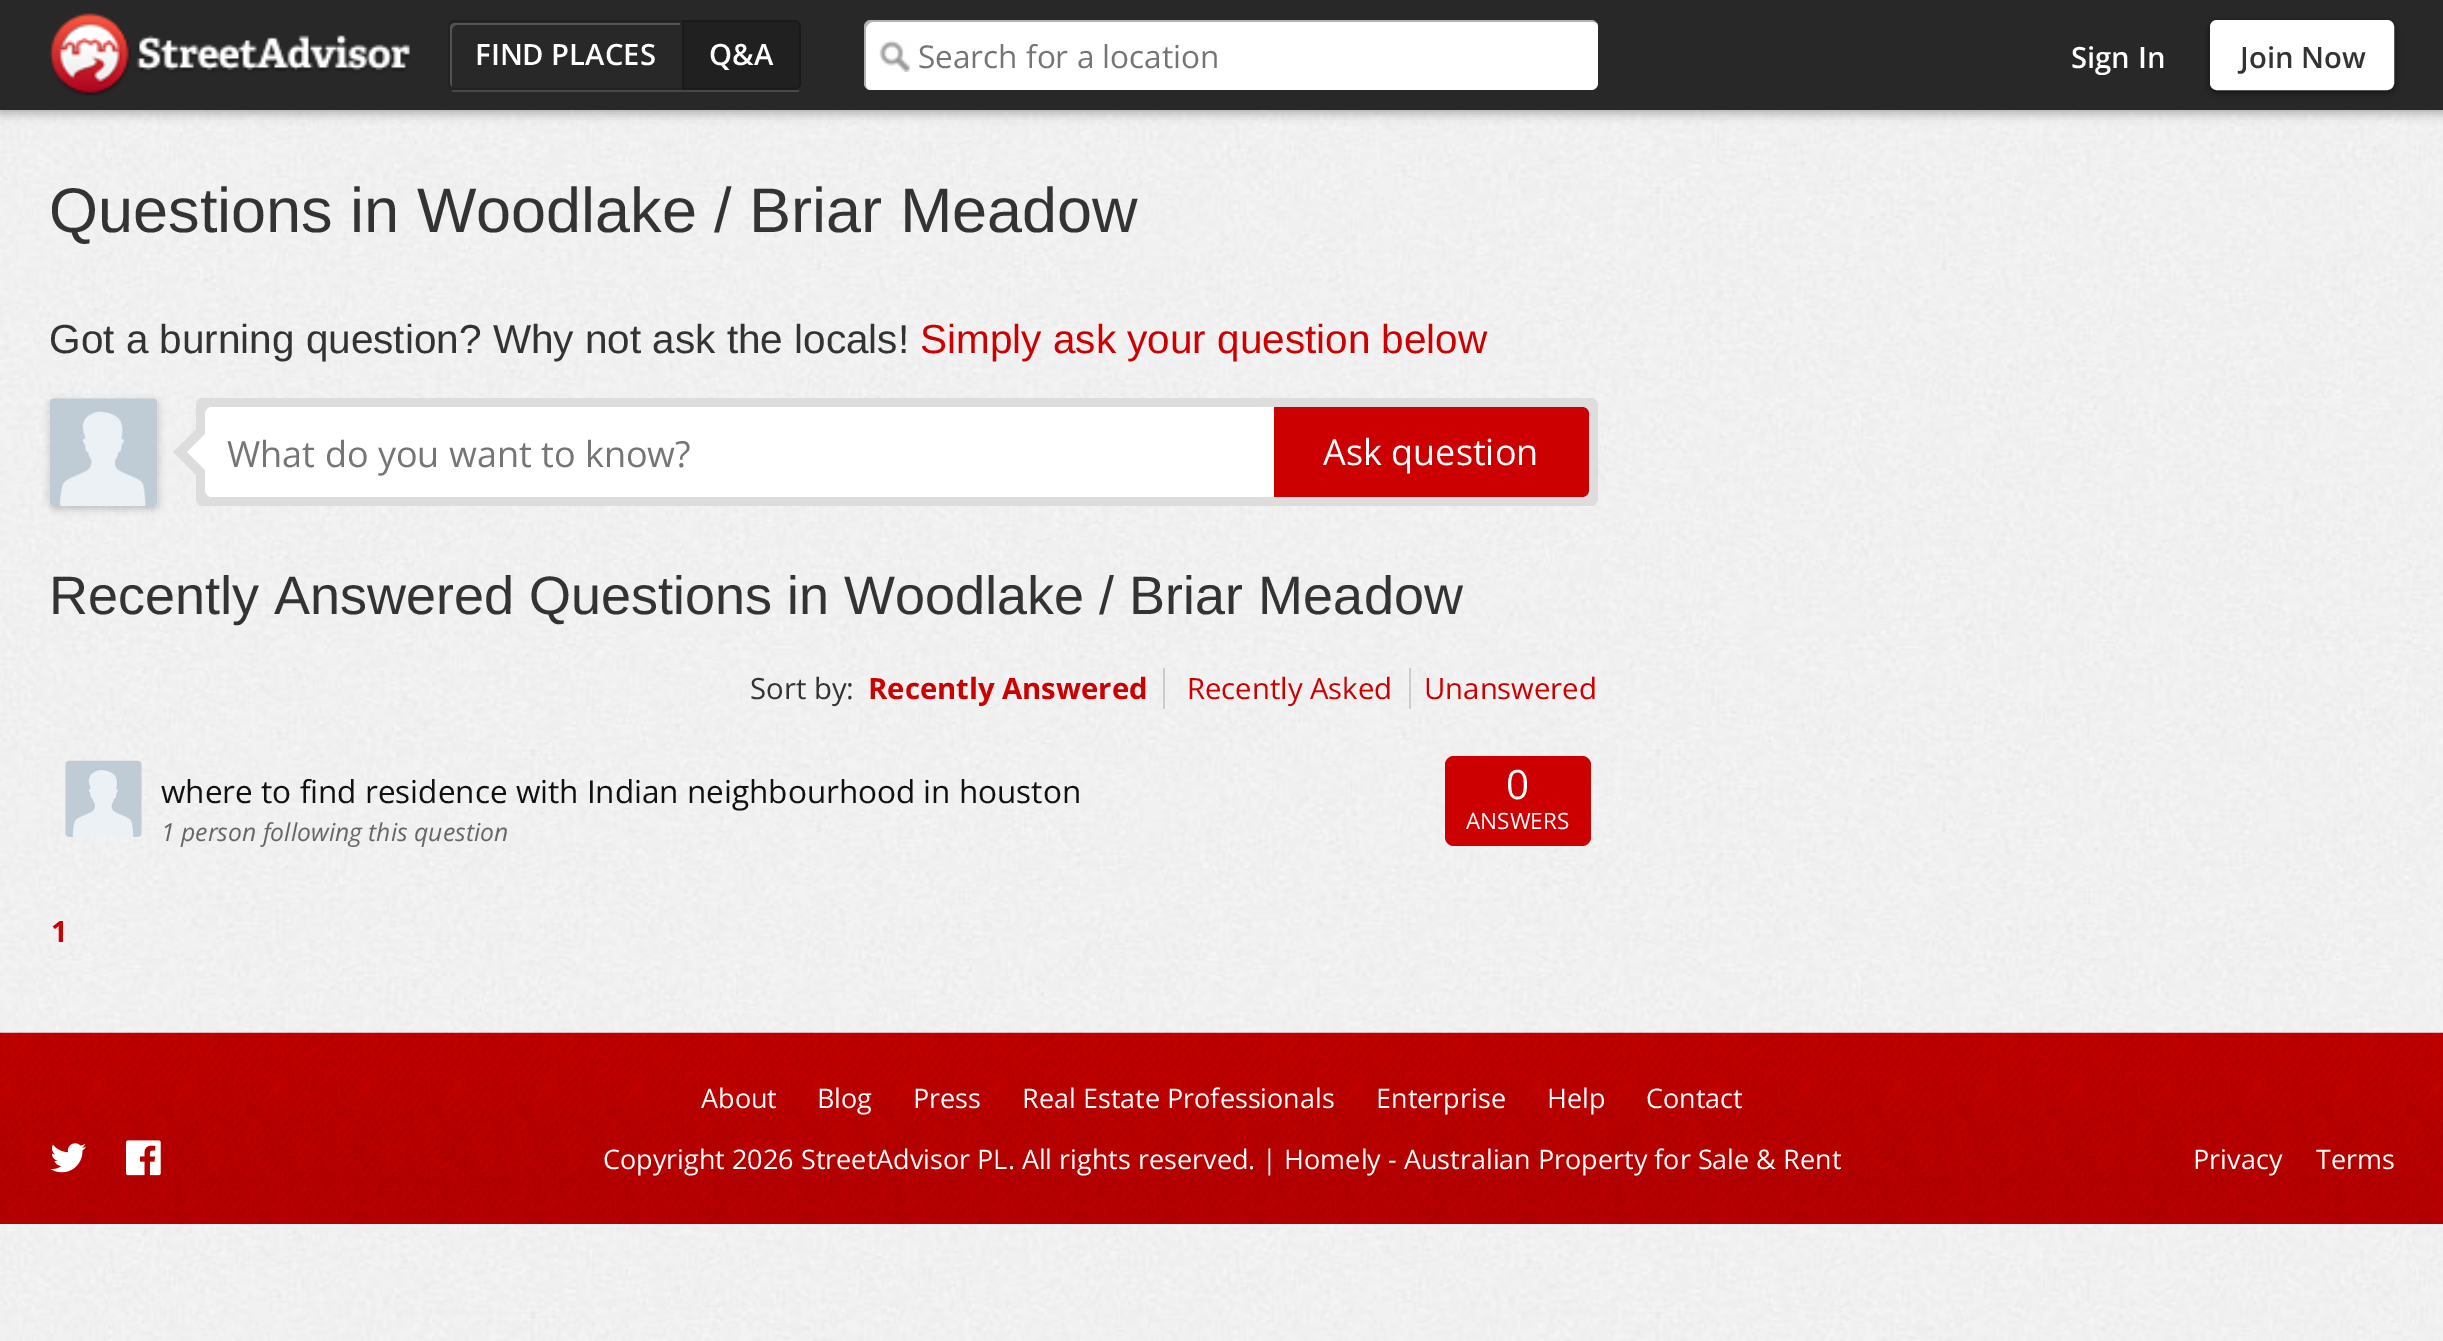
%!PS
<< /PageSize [2443 1341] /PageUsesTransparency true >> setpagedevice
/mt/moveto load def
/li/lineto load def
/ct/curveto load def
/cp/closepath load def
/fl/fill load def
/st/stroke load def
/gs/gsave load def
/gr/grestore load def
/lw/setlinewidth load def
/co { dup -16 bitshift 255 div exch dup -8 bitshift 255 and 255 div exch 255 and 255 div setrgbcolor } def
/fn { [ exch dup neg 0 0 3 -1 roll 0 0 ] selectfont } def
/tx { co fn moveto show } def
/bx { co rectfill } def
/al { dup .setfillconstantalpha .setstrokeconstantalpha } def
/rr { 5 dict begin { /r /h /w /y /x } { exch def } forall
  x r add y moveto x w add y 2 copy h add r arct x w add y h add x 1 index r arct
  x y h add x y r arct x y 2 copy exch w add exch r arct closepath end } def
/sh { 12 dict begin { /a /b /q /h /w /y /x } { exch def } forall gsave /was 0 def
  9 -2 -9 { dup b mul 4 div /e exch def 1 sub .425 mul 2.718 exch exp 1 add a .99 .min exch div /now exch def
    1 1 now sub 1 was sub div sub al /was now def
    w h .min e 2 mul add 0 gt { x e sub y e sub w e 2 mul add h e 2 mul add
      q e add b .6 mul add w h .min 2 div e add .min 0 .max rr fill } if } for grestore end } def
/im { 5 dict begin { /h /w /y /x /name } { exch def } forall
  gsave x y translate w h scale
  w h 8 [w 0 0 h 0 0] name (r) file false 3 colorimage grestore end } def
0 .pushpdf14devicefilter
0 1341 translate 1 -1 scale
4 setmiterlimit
0 0 2443 1341 16#FFFFFF bx
(media/1.raw) 0 110 2443 1231 im
16#000000 co
0 2 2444 111 0 5.5 .3 sh
0 0 2443 110 16#282828 bx
(media/2.raw) 49 13 361 83 im
452 90 347 2 16#484848 bx
16#535353 co
457 25 mt 680 25 li 680 23 li 455 23 li 452 23 450 25 450 28 ct 450 84 li 452 87 li 452 38 li 452 34 450 25 457 25 ct cp fl
16#202020 co
454 22 mt 453 22 452 23 451 24 ct 450 22 li 452 20 li 682 20 li 680 22 li cp fl
16#222222 co
682 90 mt 680 88 li 454 88 li 453 88 452 87 451 87 ct 450 88 li 451 89 452 90 454 90 ct cp fl
0.15 al
16#000000 co
450 88 mt 449 87 448 85 448 83 ct 448 27 li 448 25 449 23 450 22 ct 451 24 li 450 27 li 450 74 li 450 76 449 84 451 87 ct cp fl
1 al
16#202020 co
682 20 mt 794 20 li 798 20 801 23 801 27 ct 801 83 li 801 87 798 90 794 90 ct 682 90 li cp fl
0.2 al
16#000000 co
684 22 mt 682 20 li 796 20 li 799 22 li 798 24 li 797 23 795 22 794 22 ct cp fl
801 83 mt 801 27 li 801 25 800 23 799 22 ct 798 24 li 798 25 799 26 799 27 ct 799 83 li 799 84 798 86 798 87 ct 799 88 li 800 87 801 85 801 83 ct cp fl
0.15 al
682 90 mt 795 90 li 799 88 li 798 87 li 795 88 li 684 88 li cp fl
682 90 mt 682 20 li 684 22 li 684 88 li cp fl
1 al
16#FFFFFF co
864 20 734 70 7 rr fl
(media/3.raw) 879 40 32 32 im
0.3 al
16#000000 co
873 22 mt 1594 22 li 1597 23 li 1596 21 1594 20 1591 20 ct 871 20 li 867 20 864 23 864 27 ct 864 83 li 864 85 865 87 867 89 ct 866 86 li 866 29 li 866 26 869 22 873 22 ct cp fl
1 al
2210 23 184 69 7 3.5 .6 sh
16#FFFFFF co
2211 21 182 68 6 rr gs fl gr
2 lw
st
16#000000 co
50 401 108 108 5 3.5 .2 sh
(media/4.raw) 49 398 109 108 im
16#DDDDDD co
196 398 1402 108 7 rr fl
205 421 mt 205 484 li 173 452 li cp fl
16#FFFFFF co
205 434 mt 205 470 li 187 452 li cp fl
212 407 mt 1274 407 li 1274 497 li 212 497 li 208 497 205 494 205 490 ct 205 414 li 205 410 208 407 212 407 ct cp fl
16#CC0000 co
1274 407 mt 1582 407 li 1586 407 1589 410 1589 414 ct 1589 490 li 1589 494 1586 497 1582 497 ct 1274 497 li cp fl
1163 668 2 41 16#CCCCCC bx
1409 668 2 41 16#CCCCCC bx
(media/5.raw) 65 760 77 77 im
16#CC0000 co
1445 756 146 90 9 rr fl
(media/6.raw) 0 1032 2443 192 im
(media/7.raw) 50 1143 36 30 im
(media/8.raw) 126 1140 35 36 im
(FIND PLACES) 475 65 /OpenSans-SemiBold 29.25 16#FFFFFF tx
(Q&A) 709 65 /OpenSans-SemiBold 29.25 16#FFFFFF tx
(Search for a location) 918 68 /OpenSans-Regular 31.5 16#757575 tx
(Sign In) 2071 68 /OpenSans-SemiBold 29.25 16#FFFFFF tx
(Join Now) 2240 68 /OpenSans-SemiBold 29.25 16#333333 tx
(Questions in Woodlake / Briar Meadow) 49 232 /LiberationSans-Regular 63 16#333333 tx
(Got a burning question? Why not ask the locals!) 49 353 /LiberationSans-Regular 40.5 16#333333 tx
(Simply ask your question below) 920 353 /LiberationSans-Regular 40.5 16#CC0000 tx
(What do you want to know?) 227 467 /OpenSans-Regular 36 16#757575 tx
(Ask question) 1323 465 /OpenSans-Regular 36 16#FFFFFF tx
(Recently Answered Questions in Woodlake / Briar Meadow) 49 614 /LiberationSans-Regular 54 16#333333 tx
(Sort by:) 750 699 /OpenSans-Regular 29.25 16#333333 tx
(Recently Answered) 868 699 /OpenSans-Bold 29.25 16#CC0000 tx
(Recently Asked) 1187 699 /OpenSans-Regular 29.25 16#CC0000 tx
(Unanswered) 1424 699 /OpenSans-Regular 29.25 16#CC0000 tx
(where to find residence with Indian neighbourhood in houston) 161 803 /OpenSans-Regular 31.5 16#111111 tx
(1 person following this question) 161 841 /OpenSans-Italic 24.75 16#666666 tx
(0) 1506 799 /OpenSans-Regular 40.5 16#FFFFFF tx
(ANSWERS) 1466 829 /OpenSans-Regular 22.5 16#FFFFFF tx
(1) 51 942 /OpenSans-Bold 29.25 16#CC0000 tx
(About) 701 1108 /OpenSans-Regular 27 16#FFFFFF tx
(Blog) 817 1108 /OpenSans-Regular 27 16#FFFFFF tx
(Press) 913 1108 /OpenSans-Regular 27 16#FFFFFF tx
(Real Estate Professionals) 1022 1108 /OpenSans-Regular 27 16#FFFFFF tx
(Enterprise) 1376 1108 /OpenSans-Regular 27 16#FFFFFF tx
(Help) 1547 1108 /OpenSans-Regular 27 16#FFFFFF tx
(Contact) 1646 1108 /OpenSans-Regular 27 16#FFFFFF tx
(Copyright 2026 StreetAdvisor PL. All rights reserved. | Homely - Australian Property for Sale & Rent) 603 1169 /OpenSans-Regular 27 16#FFFFFF tx
(Privacy) 2193 1169 /OpenSans-Regular 27 16#FFFFFF tx
(Terms) 2316 1169 /OpenSans-Regular 27 16#FFFFFF tx
.poppdf14devicefilter showpage
